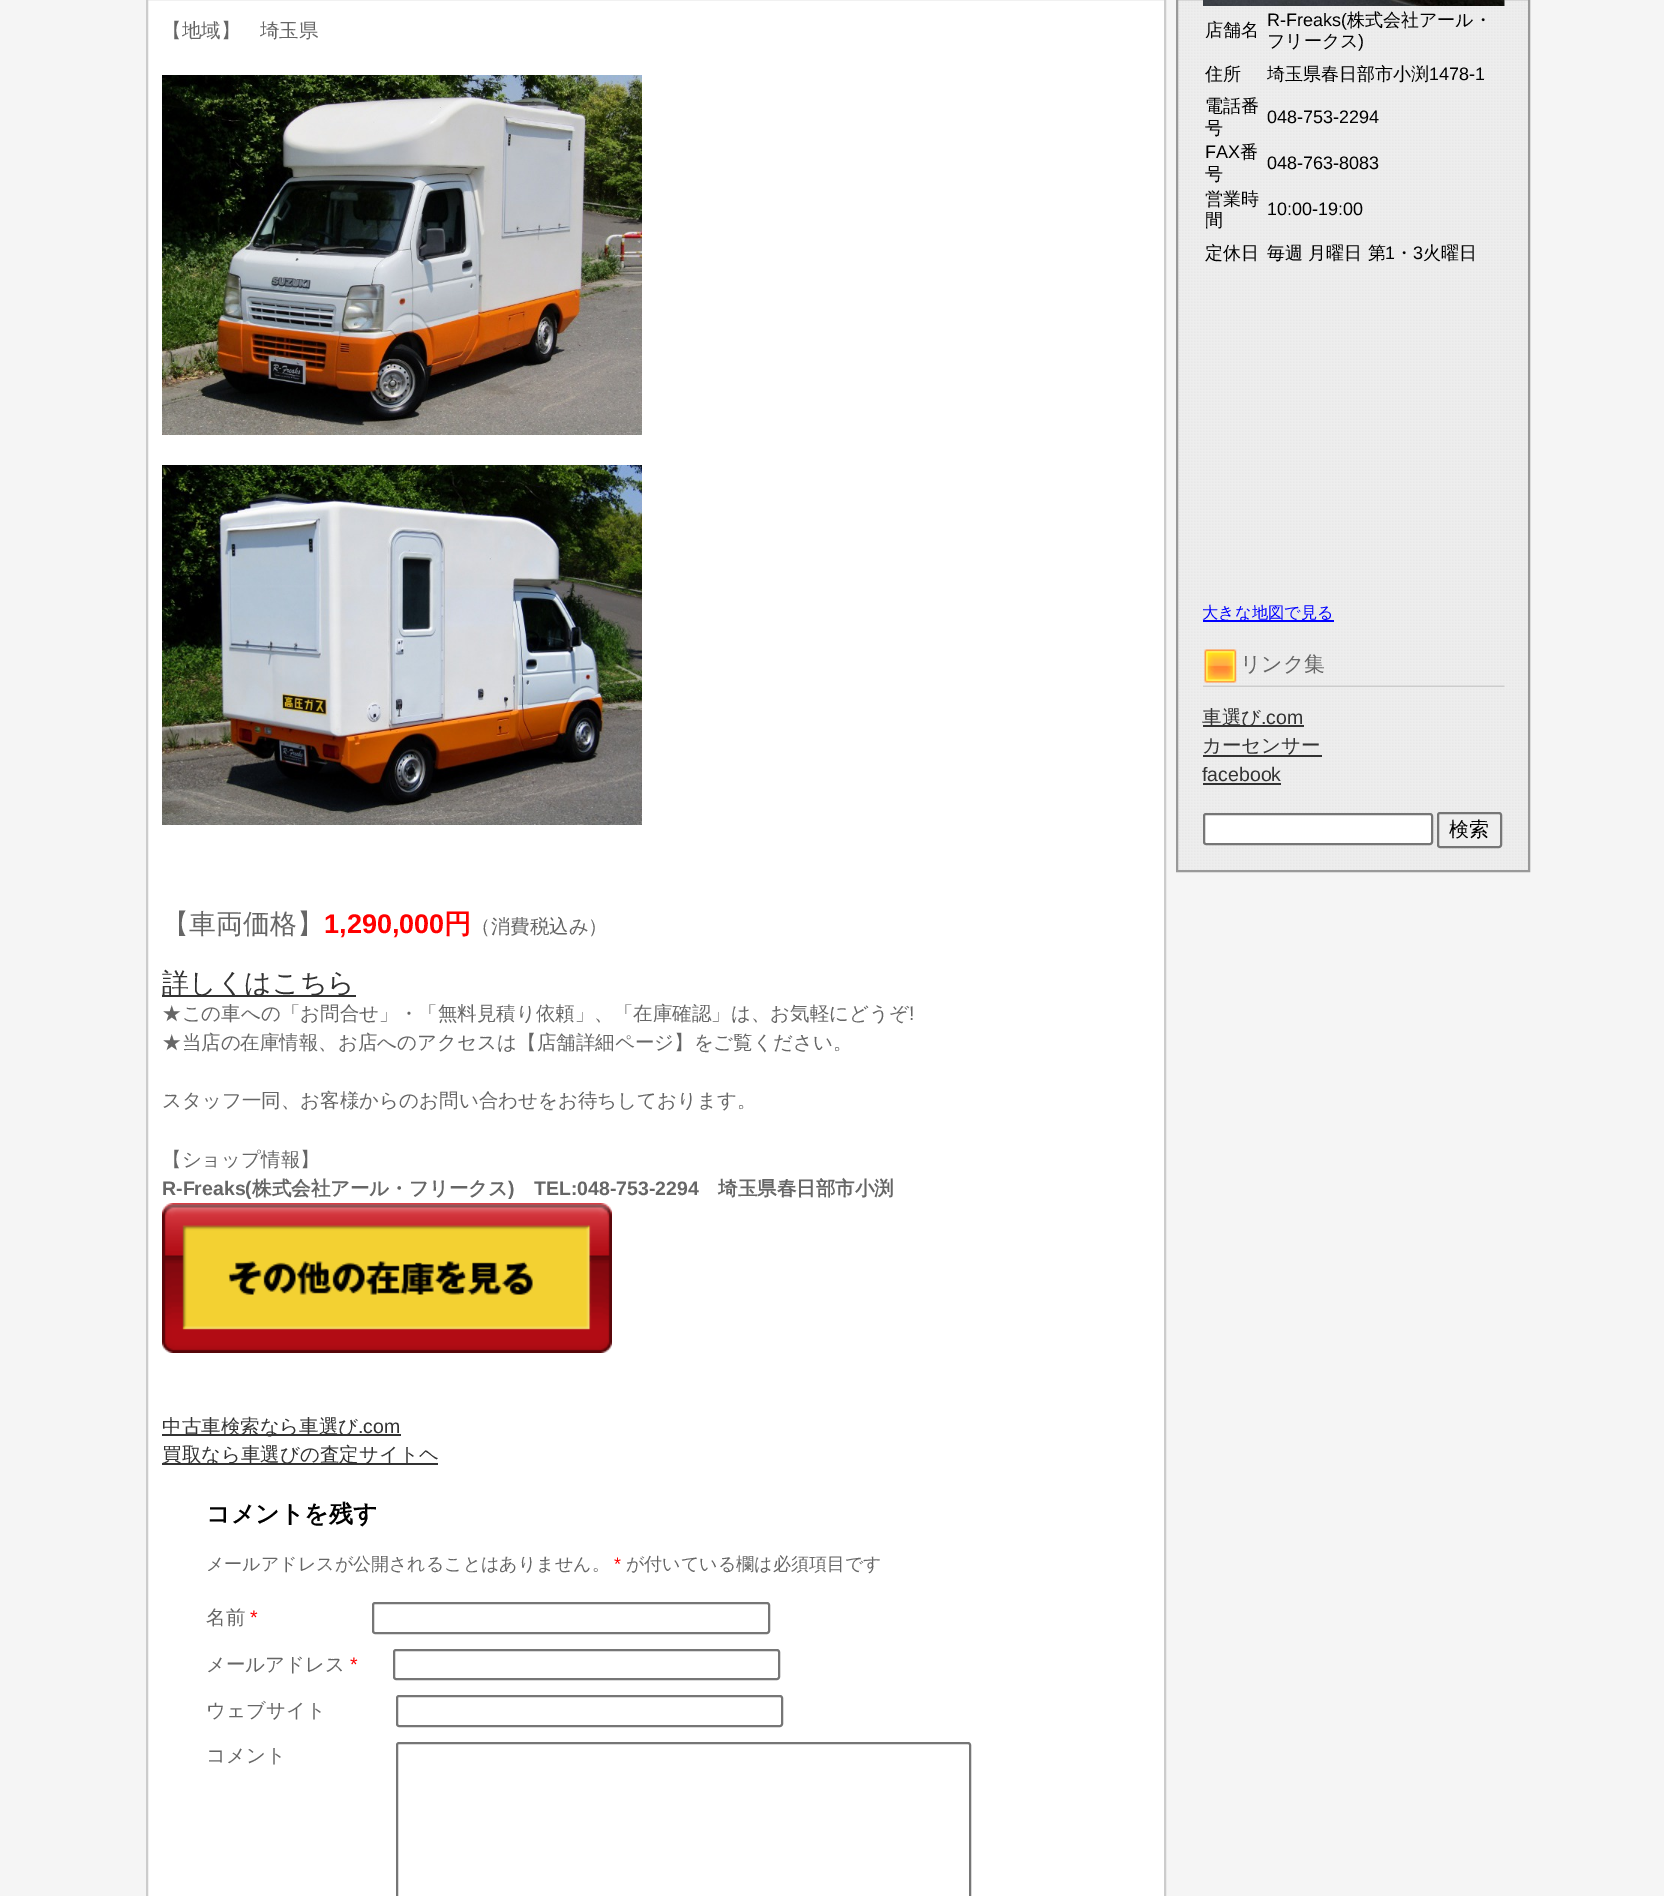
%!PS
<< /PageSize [1664 1896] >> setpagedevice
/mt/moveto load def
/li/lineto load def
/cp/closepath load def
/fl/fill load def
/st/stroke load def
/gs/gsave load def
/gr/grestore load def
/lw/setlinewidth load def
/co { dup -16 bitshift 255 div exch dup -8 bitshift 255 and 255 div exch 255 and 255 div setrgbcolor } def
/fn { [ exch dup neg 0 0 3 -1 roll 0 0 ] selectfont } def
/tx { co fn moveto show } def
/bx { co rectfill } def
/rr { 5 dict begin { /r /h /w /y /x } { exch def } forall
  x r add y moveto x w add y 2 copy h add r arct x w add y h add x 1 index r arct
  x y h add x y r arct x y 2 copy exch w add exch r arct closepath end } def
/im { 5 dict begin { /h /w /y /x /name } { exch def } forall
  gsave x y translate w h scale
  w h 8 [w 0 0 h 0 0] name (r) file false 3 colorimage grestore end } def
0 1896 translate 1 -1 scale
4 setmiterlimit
0 0 1664 1896 16#F5F5F5 bx
16#FFFFFF co
147 -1 mt 1165 -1 li 1165 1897 li 147 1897 li cp gs fl gr
16#CCCCCC co
2 lw
st
(media/1.raw) 162 75 480 360 im
(media/2.raw) 162 465 480 360 im
162 995 194 2 16#333333 bx
(media/3.raw) 162 1203 450 150 im
162 1434 239 2 16#333333 bx
162 1463 276 2 16#333333 bx
16#767676 co
373 1603 396 30 2 rr st
394 1650 385 29 2 rr st
397 1696 385 30 2 rr st
397 1743 573 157 2 rr st
(media/4.raw) 1178 0 350 870 im
16#999999 co
1177 -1 352 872 rectstroke
(media/5.raw) 1203 0 302 6 im
1203 620 131 2 16#0000FF bx
(media/6.raw) 1203 649 302 38 im
1203 725 101 2 16#333333 bx
1203 755 119 2 16#333333 bx
1203 783 78 2 16#333333 bx
16#FFFFFF co
1204 814 228 30 2 rr gs fl gr
16#767676 co
st
16#EFEFEF co
1438 813 63 34 2 rr gs fl gr
16#767676 co
st
(【地域】　埼玉県) 162 37 /WenQuanYiZenHei-Medium 19.5 16#666666 tx
(【車両価格】) 162 933 /WenQuanYiZenHei-Medium 27 16#666666 tx
(1,290,000) 324 933 /LiberationSans-Bold 27 16#FF0000 tx
(円) 444 933 /WenQuanYiZenHei-Bold 27 16#FF0000 tx
(（消費税込み）) 471 933 /WenQuanYiZenHei-Medium 19.5 16#666666 tx
(詳しくはこちら) 162 992 /WenQuanYiZenHei-Medium 27 16#333333 tx
(★この車への「お問合せ」・「無料見積り依頼」、「在庫確認」は、お気軽にどうぞ) 162 1020 /WenQuanYiZenHei-Medium 19.5 16#666666 tx
(!) 909 1020 /LiberationSans-Regular 19.5 16#666666 tx
(★当店の在庫情報、お店へのアクセスは【店舗詳細ページ】をご覧ください。) 162 1049 /WenQuanYiZenHei-Medium 19.5 16#666666 tx
(スタッフ一同、お客様からのお問い合わせをお待ちしております。) 162 1107 /WenQuanYiZenHei-Medium 19.5 16#666666 tx
(【ショップ情報】) 162 1166 /WenQuanYiZenHei-Medium 19.5 16#666666 tx
(R-Freaks\() 162 1195 /LiberationSans-Bold 19.5 16#666666 tx
(株式会社アール・フリークス) 252 1195 /WenQuanYiZenHei-Bold 19.5 16#666666 tx
(\)) 508 1195 /LiberationSans-Bold 19.5 16#666666 tx
(TEL:048-753-2294) 534 1195 /LiberationSans-Bold 19.5 16#666666 tx
(埼玉県春日部市小渕) 718 1195 /WenQuanYiZenHei-Bold 19.5 16#666666 tx
(中古車検索なら車選び) 162 1433 /WenQuanYiZenHei-Medium 19.5 16#333333 tx
(.com) 358 1433 /LiberationSans-Regular 19.5 16#333333 tx
(買取なら車選びの査定サイトヘ) 162 1461 /WenQuanYiZenHei-Medium 19.5 16#333333 tx
(コメントを残す) 206 1522 /WenQuanYiZenHei-Bold 24 16#000000 tx
(メールアドレスが公開されることはありません。) 206 1570 /WenQuanYiZenHei-Medium 18 16#666666 tx
(*) 614 1570 /LiberationSans-Regular 18 16#FF0000 tx
(が付いている欄は必須項目です) 626 1570 /WenQuanYiZenHei-Medium 18 16#666666 tx
(名前) 206 1624 /WenQuanYiZenHei-Medium 19.5 16#666666 tx
(*) 250 1624 /LiberationSans-Regular 19.5 16#FF0000 tx
(メールアドレス) 206 1671 /WenQuanYiZenHei-Medium 19.5 16#666666 tx
(*) 350 1671 /LiberationSans-Regular 19.5 16#FF0000 tx
(ウェブサイト) 206 1717 /WenQuanYiZenHei-Medium 19.5 16#666666 tx
(コメント) 206 1762 /WenQuanYiZenHei-Medium 19.5 16#666666 tx
(店舗名) 1205 36 /WenQuanYiZenHei-Medium 18 16#000000 tx
(R-Freaks\() 1267 26 /LiberationSans-Regular 18 16#000000 tx
(株式会社アール・) 1347 26 /WenQuanYiZenHei-Medium 18 16#000000 tx
(フリークス) 1267 47 /WenQuanYiZenHei-Medium 18 16#000000 tx
(\)) 1358 47 /LiberationSans-Regular 18 16#000000 tx
(住所) 1205 80 /WenQuanYiZenHei-Medium 18 16#000000 tx
(埼玉県春日部市小渕) 1267 80 /WenQuanYiZenHei-Medium 18 16#000000 tx
(1478-1) 1429 80 /LiberationSans-Regular 18 16#000000 tx
(電話番) 1205 112 /WenQuanYiZenHei-Medium 18 16#000000 tx
(号) 1205 134 /WenQuanYiZenHei-Medium 18 16#000000 tx
(048-753-2294) 1267 123 /LiberationSans-Regular 18 16#000000 tx
(FAX) 1205 158 /LiberationSans-Regular 18 16#000000 tx
(番) 1240 158 /WenQuanYiZenHei-Medium 18 16#000000 tx
(号) 1205 180 /WenQuanYiZenHei-Medium 18 16#000000 tx
(048-763-8083) 1267 169 /LiberationSans-Regular 18 16#000000 tx
(営業時) 1205 205 /WenQuanYiZenHei-Medium 18 16#000000 tx
(間) 1205 226 /WenQuanYiZenHei-Medium 18 16#000000 tx
(10:00-19:00) 1267 215 /LiberationSans-Regular 18 16#000000 tx
(定休日) 1205 259 /WenQuanYiZenHei-Medium 18 16#000000 tx
(毎週 月曜日 第) 1267 259 /WenQuanYiZenHei-Medium 18 16#000000 tx
(1) 1385 259 /LiberationSans-Regular 18 16#000000 tx
(・) 1395 259 /WenQuanYiZenHei-Medium 18 16#000000 tx
(3) 1413 259 /LiberationSans-Regular 18 16#000000 tx
(火曜日) 1423 259 /WenQuanYiZenHei-Medium 18 16#000000 tx
(大きな地図で見る) 1202 618 /WenQuanYiZenHei-Medium 16.25 16#0000FF tx
(リンク集) 1240 671 /WenQuanYiZenHei-Medium 21 16#666666 tx
(車選び) 1202 724 /WenQuanYiZenHei-Medium 19.5 16#333333 tx
(.com) 1261 724 /LiberationSans-Regular 19.5 16#333333 tx
(カーセンサー) 1202 752 /WenQuanYiZenHei-Medium 19.5 16#333333 tx
(facebook) 1202 781 /LiberationSans-Regular 19.5 16#333333 tx
(検索) 1449 836 /WenQuanYiZenHei-Medium 20 16#000000 tx
showpage
